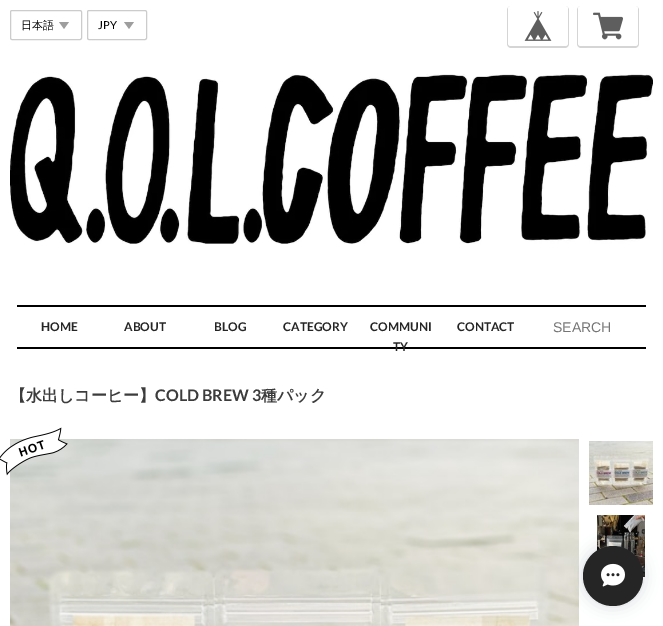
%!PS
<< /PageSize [663 626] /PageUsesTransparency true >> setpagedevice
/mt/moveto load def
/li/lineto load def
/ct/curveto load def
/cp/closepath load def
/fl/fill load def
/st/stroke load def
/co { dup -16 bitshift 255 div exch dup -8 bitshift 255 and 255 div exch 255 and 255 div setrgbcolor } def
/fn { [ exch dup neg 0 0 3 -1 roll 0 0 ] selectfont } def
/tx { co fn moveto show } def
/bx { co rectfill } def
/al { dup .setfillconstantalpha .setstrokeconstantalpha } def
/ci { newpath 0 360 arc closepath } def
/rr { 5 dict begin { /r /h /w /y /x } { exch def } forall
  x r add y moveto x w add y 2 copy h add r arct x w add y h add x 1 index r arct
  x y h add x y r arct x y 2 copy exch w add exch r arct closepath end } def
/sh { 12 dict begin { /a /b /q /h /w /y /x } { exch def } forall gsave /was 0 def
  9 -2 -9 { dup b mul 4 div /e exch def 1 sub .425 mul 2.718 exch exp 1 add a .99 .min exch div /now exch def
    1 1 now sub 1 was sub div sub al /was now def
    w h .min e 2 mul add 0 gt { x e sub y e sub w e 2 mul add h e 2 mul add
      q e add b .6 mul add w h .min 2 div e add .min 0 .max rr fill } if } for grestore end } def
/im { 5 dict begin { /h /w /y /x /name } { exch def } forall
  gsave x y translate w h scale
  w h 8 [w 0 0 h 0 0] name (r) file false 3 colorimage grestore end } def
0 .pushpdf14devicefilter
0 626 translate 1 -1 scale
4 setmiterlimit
0 0 663 626 16#FFFFFF bx
16#CCCCCC co
10.5 10.5 71 29 1.5 rr st
(media/1.raw) 59 22 10 7 im
87.5 10.5 59 29 1.5 rr st
(media/1.raw) 124 22 10 7 im
16#D5D5D5 co
511 6 mt 509 6 507 8 507 10 ct 507 44 li 507 46 509 48 511 48 ct 565 48 li 567 48 569 46 569 44 ct 569 10 li 569 8 567 6 565 6 ct 567 6 568 7 568 9 ct 568 43 li 568 45 567 46 565 46 ct 511 46 li 509 46 508 45 508 43 ct 508 9 li 508 7 509 6 511 6 ct cp fl
16#FFFFFF co
508 6 60 40 3 rr fl
(media/2.raw) 524 11 28 30 im
16#D5D5D5 co
581 6 mt 579 6 577 8 577 10 ct 577 44 li 577 46 579 48 581 48 ct 635 48 li 637 48 639 46 639 44 ct 639 10 li 639 8 637 6 635 6 ct 637 6 638 7 638 9 ct 638 43 li 638 45 637 46 635 46 ct 581 46 li 579 46 578 45 578 43 ct 578 9 li 578 7 579 6 581 6 ct cp fl
16#FFFFFF co
578 6 60 40 3 rr fl
(media/3.raw) 593 12 30 28 im
(media/4.raw) 10 74 643 170 im
17 305 629 2 16#000000 bx
17 347 629 2 16#000000 bx
(media/6.raw) 10 439 569 187 im
(media/5.raw) 0 427 68 49 im
(media/7.raw) 589 441 64 64 im
(media/8.raw) 597 515 48 62 im
16#334258 co
583 546 60 60 30 7.5 .2 sh
16#252525 co
613 576 30 ci fl
(media/9.raw) 601 563 24 24 im
(日本語) 21 29 /WenQuanYiZenHei-Medium 11 16#000000 tx
(JPY) 98 29 /Lato-Regular 11 16#000000 tx
(HOME) 41 331 /Lato-Bold 12 16#252525 tx
(ABOUT) 124 331 /Lato-Bold 12 16#252525 tx
(BLOG) 214 331 /Lato-Bold 12 16#252525 tx
(CATEGORY) 283 331 /Lato-Bold 12 16#252525 tx
(COMMUNI) 370 331 /Lato-Bold 12 16#252525 tx
(TY) 393 351 /Lato-Bold 12 16#252525 tx
(CONTACT) 457 331 /Lato-Bold 12 16#252525 tx
(SEARCH) 553 332 /LiberationSans-Regular 14 16#757575 tx
(【水出しコーヒー】) 10 401 /WenQuanYiZenHei-Bold 16 16#3C3C3C tx
(COLD BREW 3) 155 401 /Lato-Bold 16 16#3C3C3C tx
(種パック) 261 401 /WenQuanYiZenHei-Bold 16 16#3C3C3C tx
.poppdf14devicefilter showpage
